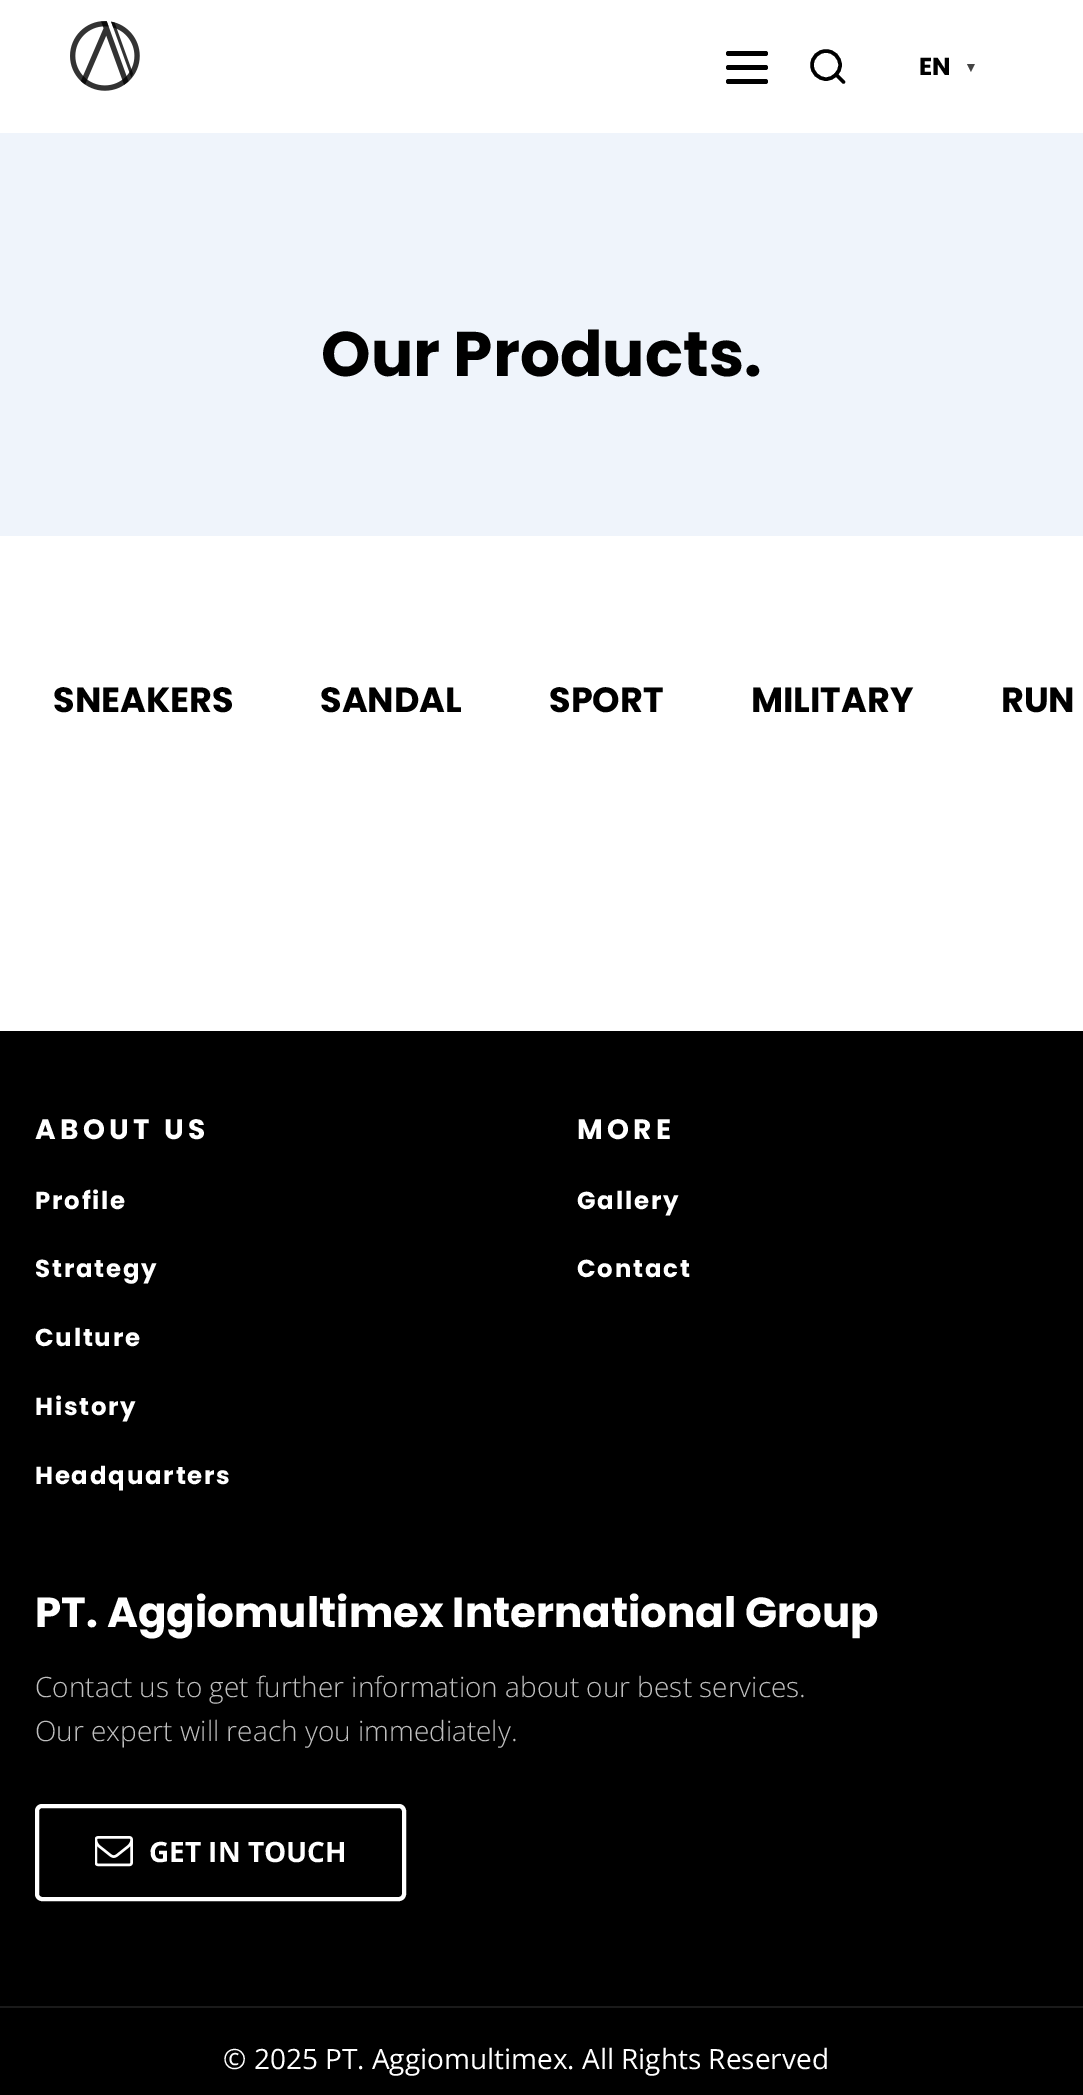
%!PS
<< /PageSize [1083 2095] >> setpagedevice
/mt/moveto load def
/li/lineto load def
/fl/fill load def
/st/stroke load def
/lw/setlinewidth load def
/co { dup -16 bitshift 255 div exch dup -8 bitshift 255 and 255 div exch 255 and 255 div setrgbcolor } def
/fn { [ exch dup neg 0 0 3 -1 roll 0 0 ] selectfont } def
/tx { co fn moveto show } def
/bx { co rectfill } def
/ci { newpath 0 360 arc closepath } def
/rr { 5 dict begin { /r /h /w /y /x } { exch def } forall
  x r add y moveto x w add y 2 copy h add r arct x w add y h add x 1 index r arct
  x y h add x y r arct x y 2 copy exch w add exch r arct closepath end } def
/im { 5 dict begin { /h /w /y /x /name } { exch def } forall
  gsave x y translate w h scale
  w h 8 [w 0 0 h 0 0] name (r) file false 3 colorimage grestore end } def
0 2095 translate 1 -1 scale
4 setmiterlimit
0 0 1083 2095 16#FFFFFF bx
(media/1.raw) 70 21 70 70 im
16#000000 co
726 51 42 5 2.5 rr fl
726 65 42 5 2.5 rr fl
726 79 42 5 2.5 rr fl
3.5 lw
826 65 14 ci st
1 setlinecap
1 setlinejoin
843.5 82 mt 836 74.5 li st
0 133 1083 403 16#EFF4FB bx
0 1031 1083 1064 16#000000 bx
0 2006 1083 2 16#1A1A1A bx
16#FFFFFF co
4 lw
0 setlinecap
0 setlinejoin
37 1806 367 93 5 rr st
(media/2.raw) 95 1836 38 31 im
(EN) 919 75 /Poppins-Bold 24.5 16#000000 tx
(▼) 964 72 /LiberationSans-Regular 14 16#444444 tx
(Our Products.) 321 376 /Poppins-Bold 63 16#000000 tx
(SNEAKERS) 53 712 /Poppins-Bold 35 16#000000 tx
(SANDAL) 320 712 /Poppins-Bold 35 16#000000 tx
(SPORT) 549 712 /Poppins-Bold 35 16#000000 tx
(MILITARY) 751 712 /Poppins-Bold 35 16#000000 tx
(RUN) 1001 712 /Poppins-Bold 35 16#000000 tx
/Poppins-Bold 28 fn
16#FFFFFF co
35 1139 mt 4.25 0 (ABOUT US) ashow
/Poppins-Bold 24.5 fn
35 1209 mt 1.75 0 (Profile) ashow
35 1277 mt 1.75 0 (Strategy) ashow
35 1346 mt 1.75 0 (Culture) ashow
35 1415 mt 1.75 0 (History) ashow
35 1484 mt 1.75 0 (Headquarters) ashow
/Poppins-Bold 28 fn
577 1139 mt 4.25 0 (MORE) ashow
/Poppins-Bold 24.5 fn
577 1209 mt 1.75 0 (Gallery) ashow
577 1277 mt 1.75 0 (Contact) ashow
(PT. Aggiomultimex International Group) 35 1627 /Poppins-Bold 42 16#FFFFFF tx
(Contact us to get further information about our best services.) 35 1697 /OpenSans-Light 28 16#BFBFBF tx
(Our expert will reach you immediately.) 35 1741 /OpenSans-Light 28 16#BFBFBF tx
(GET IN TOUCH) 149 1862 /OpenSans-Bold 28 16#FFFFFF tx
(© 2025 PT. Aggiomultimex. All Rights Reserved) 223 2069 /OpenSans-Regular 28 16#FFFFFF tx
showpage
